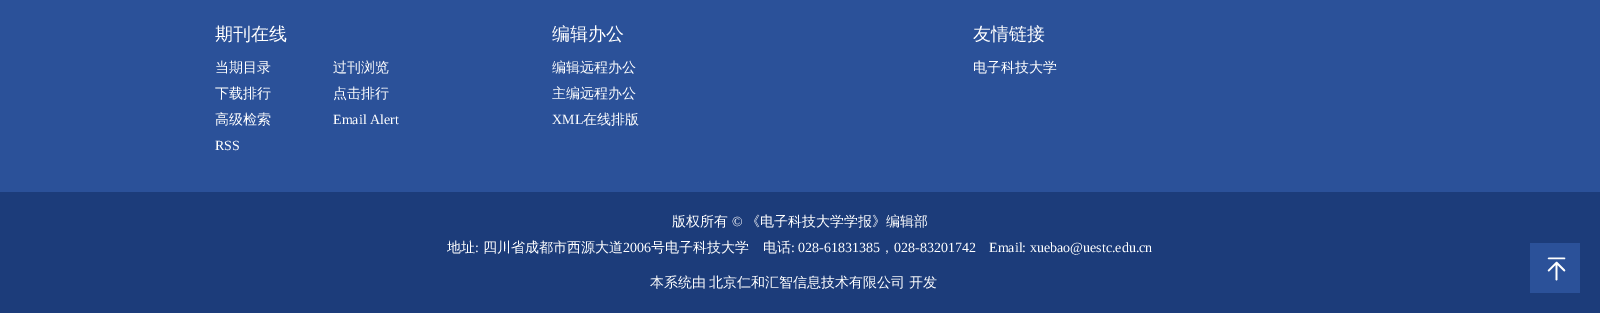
%!PS
<< /PageSize [1600 313] >> setpagedevice
/co { dup -16 bitshift 255 div exch dup -8 bitshift 255 and 255 div exch 255 and 255 div setrgbcolor } def
/fn { [ exch dup neg 0 0 3 -1 roll 0 0 ] selectfont } def
/tx { co fn moveto show } def
/bx { co rectfill } def
/im { 5 dict begin { /h /w /y /x /name } { exch def } forall
  gsave x y translate w h scale
  w h 8 [w 0 0 h 0 0] name (r) file false 3 colorimage grestore end } def
0 313 translate 1 -1 scale
4 setmiterlimit
0 0 1600 313 16#2B5199 bx
0 192 1600 121 16#1C3C7A bx
1530 243 50 50 16#2B5199 bx
(media/1.raw) 1547 257 19 24 im
(期刊在线) 215 40 /WenQuanYiZenHei-Medium 18 16#FFFFFF tx
(当期目录) 215 72 /WenQuanYiZenHei-Medium 14 16#FFFFFF tx
(过刊浏览) 333 72 /WenQuanYiZenHei-Medium 14 16#FFFFFF tx
(下载排行) 215 98 /WenQuanYiZenHei-Medium 14 16#FFFFFF tx
(点击排行) 333 98 /WenQuanYiZenHei-Medium 14 16#FFFFFF tx
(高级检索) 215 124 /WenQuanYiZenHei-Medium 14 16#FFFFFF tx
(Email Alert) 333 124 /LiberationSerif-Regular 14 16#FFFFFF tx
(RSS) 215 150 /LiberationSerif-Regular 14 16#FFFFFF tx
(编辑办公) 552 40 /WenQuanYiZenHei-Medium 18 16#FFFFFF tx
(编辑远程办公) 552 72 /WenQuanYiZenHei-Medium 14 16#FFFFFF tx
(主编远程办公) 552 98 /WenQuanYiZenHei-Medium 14 16#FFFFFF tx
(XML) 552 124 /LiberationSerif-Regular 14 16#FFFFFF tx
(在线排版) 583 124 /WenQuanYiZenHei-Medium 14 16#FFFFFF tx
(友情链接) 973 40 /WenQuanYiZenHei-Medium 18 16#FFFFFF tx
(电子科技大学) 973 72 /WenQuanYiZenHei-Medium 14 16#FFFFFF tx
(版权所有) 672 226 /WenQuanYiZenHei-Medium 14 16#FFFFFF tx
(©) 732 226 /LiberationSerif-Regular 14 16#FFFFFF tx
(《电子科技大学学报》编辑部) 746 226 /WenQuanYiZenHei-Medium 14 16#FFFFFF tx
(地址) 447 252 /WenQuanYiZenHei-Medium 14 16#FFFFFF tx
(:) 475 252 /LiberationSerif-Regular 14 16#FFFFFF tx
(四川省成都市西源大道) 483 252 /WenQuanYiZenHei-Medium 14 16#FFFFFF tx
(2006) 623 252 /LiberationSerif-Regular 14 16#FFFFFF tx
(号电子科技大学) 651 252 /WenQuanYiZenHei-Medium 14 16#FFFFFF tx
(电话) 763 252 /WenQuanYiZenHei-Medium 14 16#FFFFFF tx
(: 028-61831385) 791 252 /LiberationSerif-Regular 14 16#FFFFFF tx
(，) 880 252 /WenQuanYiZenHei-Medium 14 16#FFFFFF tx
(028-83201742) 894 252 /LiberationSerif-Regular 14 16#FFFFFF tx
(Email: xuebao@uestc.edu.cn) 989 252 /LiberationSerif-Regular 14 16#FFFFFF tx
(本系统由) 650 287 /WenQuanYiZenHei-Medium 14 16#FFFFFF tx
(北京仁和汇智信息技术有限公司) 709 287 /WenQuanYiZenHei-Medium 14 16#FFFFFF tx
(开发) 909 287 /WenQuanYiZenHei-Medium 14 16#FFFFFF tx
showpage
